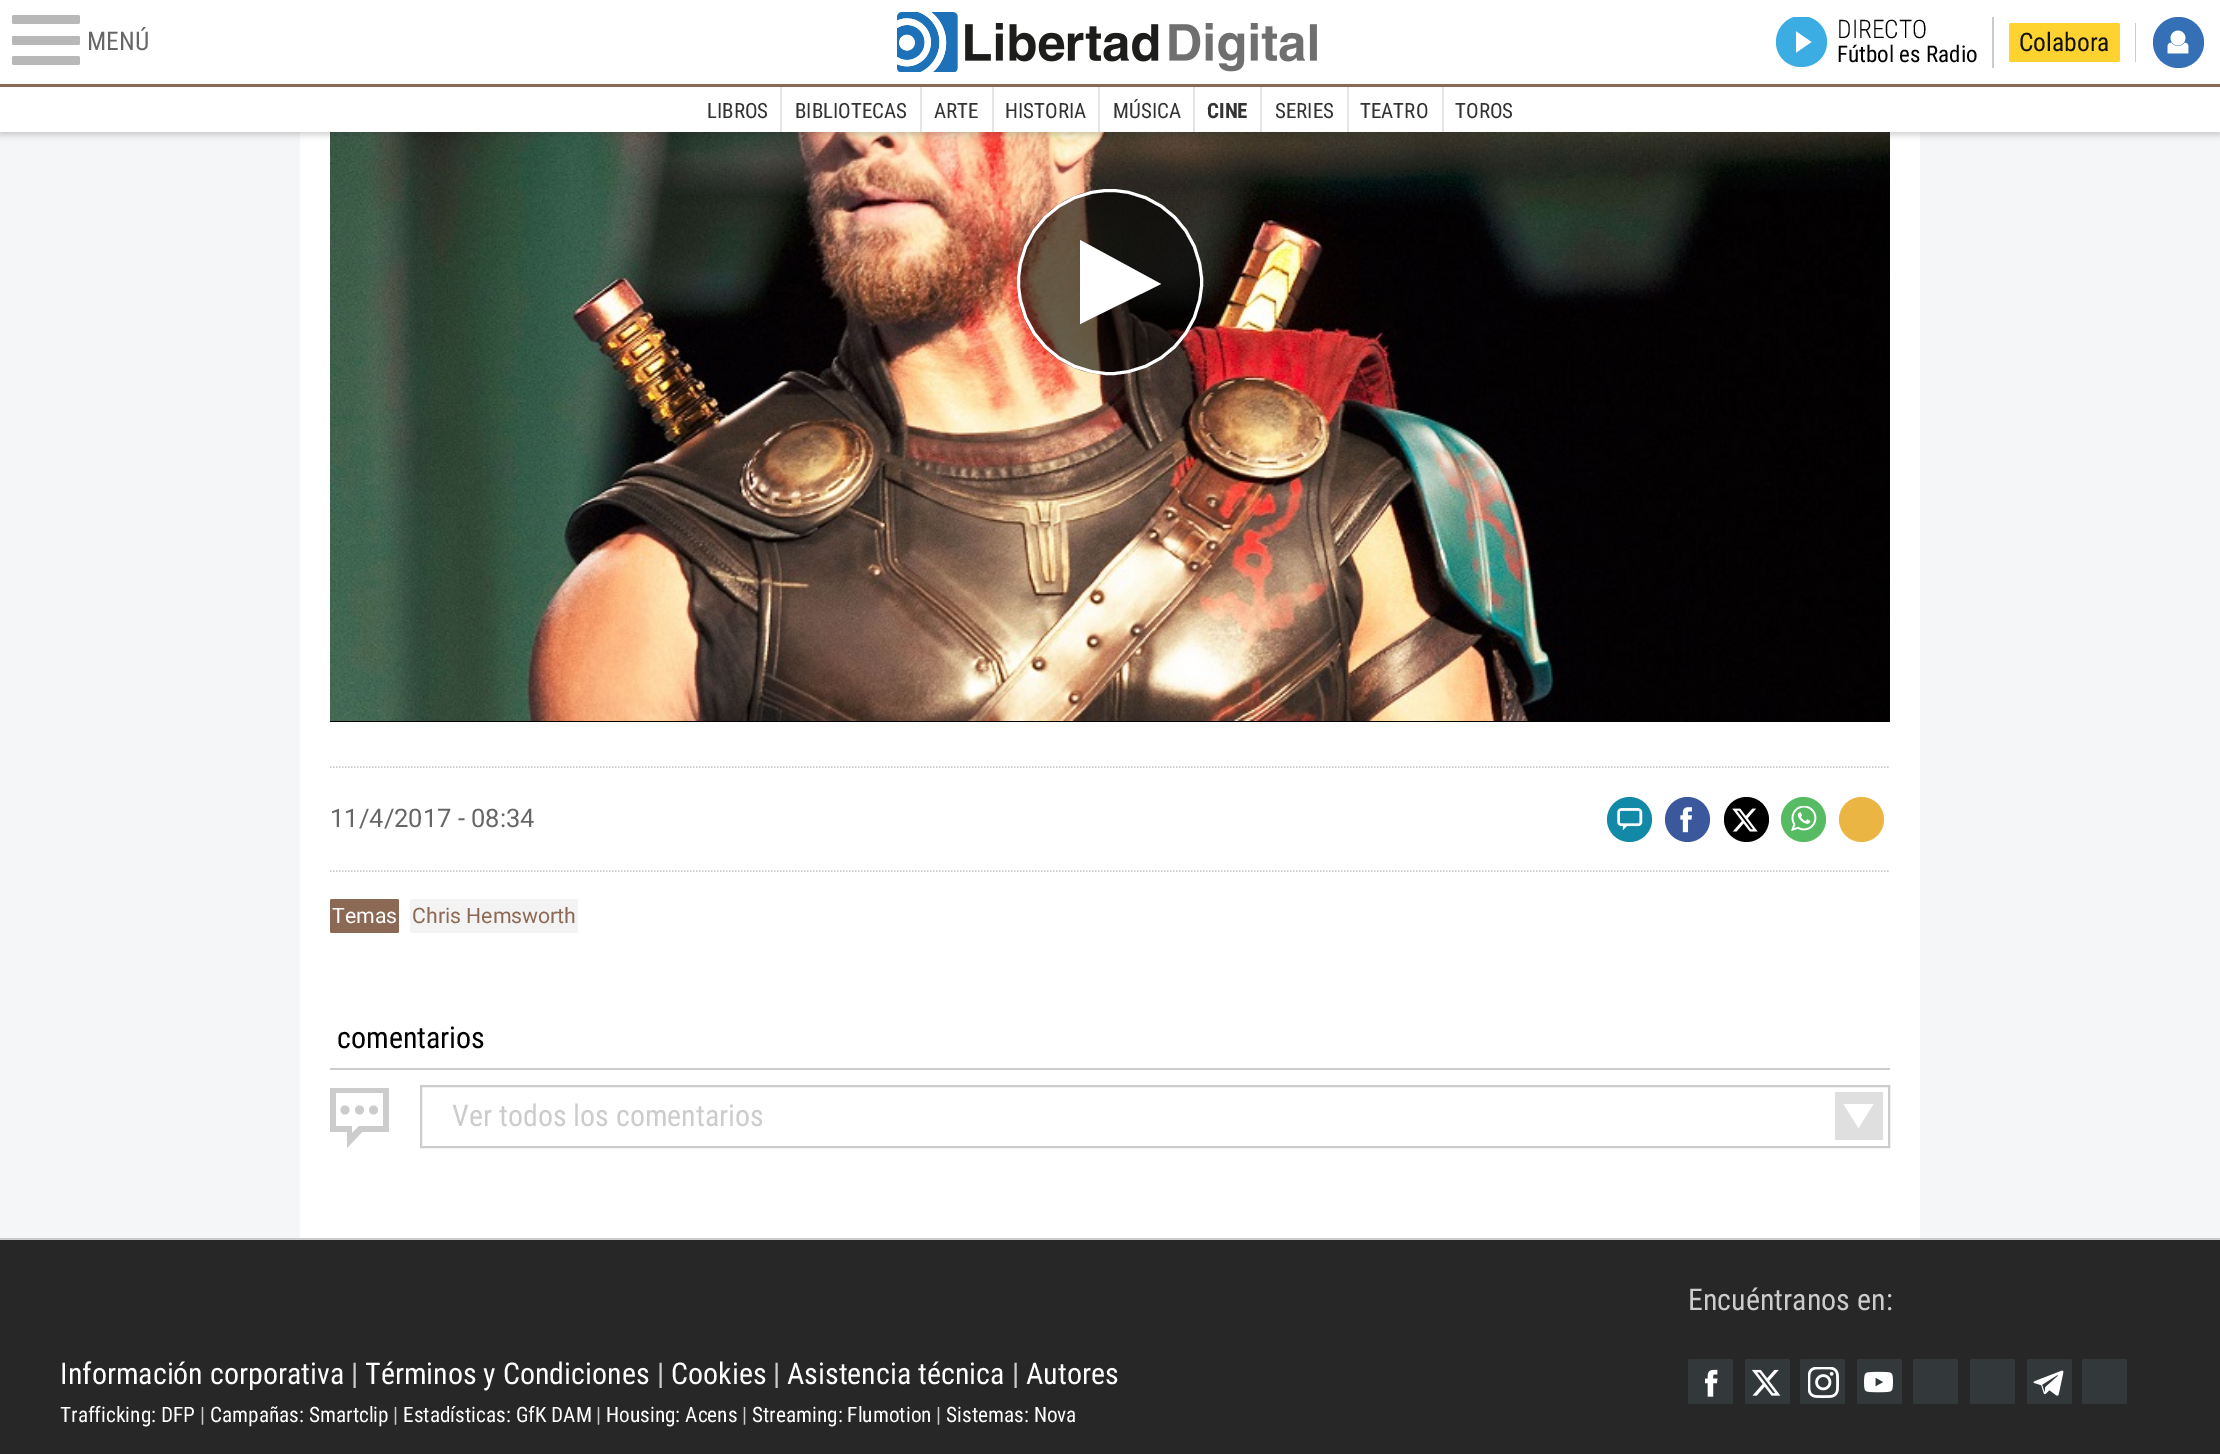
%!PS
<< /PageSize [2220 1454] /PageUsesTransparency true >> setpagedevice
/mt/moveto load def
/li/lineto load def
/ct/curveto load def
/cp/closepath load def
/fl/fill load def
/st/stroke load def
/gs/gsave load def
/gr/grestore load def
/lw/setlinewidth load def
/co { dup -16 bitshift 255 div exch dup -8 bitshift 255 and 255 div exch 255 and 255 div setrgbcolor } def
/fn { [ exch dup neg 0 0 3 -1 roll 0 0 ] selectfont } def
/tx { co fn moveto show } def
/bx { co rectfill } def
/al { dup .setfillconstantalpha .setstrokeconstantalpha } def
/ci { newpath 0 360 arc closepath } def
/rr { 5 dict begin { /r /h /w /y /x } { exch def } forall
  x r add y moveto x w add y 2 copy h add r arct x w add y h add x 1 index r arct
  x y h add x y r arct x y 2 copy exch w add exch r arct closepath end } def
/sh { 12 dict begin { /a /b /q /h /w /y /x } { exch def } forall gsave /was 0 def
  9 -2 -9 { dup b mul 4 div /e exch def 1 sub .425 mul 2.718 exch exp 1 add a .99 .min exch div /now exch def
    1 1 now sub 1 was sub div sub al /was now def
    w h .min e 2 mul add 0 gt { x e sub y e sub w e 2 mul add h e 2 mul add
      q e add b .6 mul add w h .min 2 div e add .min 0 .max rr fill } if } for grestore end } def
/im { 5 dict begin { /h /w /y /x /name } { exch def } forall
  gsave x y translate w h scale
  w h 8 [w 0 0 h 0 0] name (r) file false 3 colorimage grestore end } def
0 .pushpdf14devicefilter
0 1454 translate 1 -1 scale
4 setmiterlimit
0 0 2220 1454 16#F5F6F8 bx
0 0 2220 84 16#FFFFFF bx
0 84 2220 3 16#8C6954 bx
16#B8B8B8 co
12 15 68 9 2 rr fl
12 36 68 9 2 rr fl
12 56 68 9 2 rr fl
(media/1.raw) 897 12 420 60 im
1992 17 2 51 16#CCCCCC bx
gs
1776 17 51 51 rectclip
16#3BADE3 co
1801 16 mt 1787 16 1776 28 1776 42 ct 1776 56 1787 67 1801 67 ct 1816 67 1827 56 1827 42 ct 1827 28 1816 16 1801 16 ct cp 1796 53 mt 1796 31 li 1812 42 li cp fl
gr
2135 23 1 39 16#CCCCCC bx
16#FED330 co
2009 23 111 39 2 rr fl
16#3570B6 co
2178.5 42.5 25.5 ci fl
(media/2.raw) 2167 30 22 24 im
300 132 1620 1106 16#FFFFFF bx
(media/3.raw) 330 132 1560 589 im
16#323232 co
0 90 2220 45 0 3 .22 sh
0 87 2220 45 16#FFFFFF bx
780 87 2 45 16#E5E5E5 bx
920 87 2 45 16#E5E5E5 bx
992 87 2 45 16#E5E5E5 bx
1098 87 2 45 16#E5E5E5 bx
1193 87 2 45 16#E5E5E5 bx
1260 87 2 45 16#E5E5E5 bx
1347 87 2 45 16#E5E5E5 bx
1442 87 2 45 16#E5E5E5 bx
330 721 1560 1 16#000000 bx
0.6 al
1110 282 93 ci fl
1 al
16#FFFFFF co
1080 324 mt 1080 240 li 1161 284 li cp fl
3 lw
1110 282 91.5 ci st
16#CCCCCC co
1.5 lw
[1.5 1.5] 0 setdash
330 767 mt 1890 767 li st
330 871 mt 1890 871 li st
16#1289A7 co
1629.5 819.5 22.5 ci fl
(media/4.raw) 1617 808 26 23 im
16#3A589B co
1687.5 819.5 22.5 ci fl
(media/5.raw) 1680 807 12 26 im
16#000000 co
1746.5 819.5 22.5 ci fl
(media/6.raw) 1732 808 26 24 im
16#57BB63 co
1803.5 819.5 22.5 ci fl
(media/7.raw) 1791 806 26 25 im
16#EAB543 co
1861.5 819.5 22.5 ci fl
16#8C6954 co
330 899 69 34 2 rr fl
16#F3F3F3 co
410 899 168 34 2 rr fl
330 1068 1560 2 16#CCCCCC bx
330 1088 mt 330 1132 li 347 1132 li 347 1148 li 362 1132 li 389 1132 li 389 1088 li cp 362 1126 mt 359 1126 li 352 1133 li 352 1126 li 336 1126 li 336 1093 li 383 1093 li 383 1126 li cp fl
345 1110 4.5 ci fl
359.5 1110 4.5 ci fl
373.5 1110 4.5 ci fl
2 lw
[] 0 setdash
421 1086 1468 61 rectstroke
1835 1092 48 48 16#DFDFDF bx
16#FFFFFF co
1843.5 1104 mt 1873.5 1104 li 1858.5 1128 li cp fl
0 1240 2220 214 16#272727 bx
0 1238 2220 2 16#CCCCCC bx
16#33383B co
1688 1359 45 45 2 rr fl
(media/8.raw) 1705 1369 13 28 im
1745 1359 45 45 2 rr fl
(media/9.raw) 1752 1369 29 27 im
1800 1359 45 45 2 rr fl
(media/10.raw) 1808 1367 31 31 im
1857 1359 45 45 2 rr fl
(media/11.raw) 1864 1371 29 22 im
1913 1359 45 45 2 rr fl
1970 1359 45 45 2 rr fl
2027 1359 45 45 2 rr fl
(media/12.raw) 2033 1370 31 26 im
2082 1359 45 45 2 rr fl
(MENÚ) 87 50 /RobotoCondensed-Regular 25.5 16#666666 tx
(DIRECTO) 1837 38 /RobotoCondensed-Light 25.5 16#000000 tx
(Fútbol es Radio) 1837 62 /RobotoCondensed-Regular 23 16#000000 tx
(Colabora) 2019 51 /RobotoCondensed-Regular 25.5 16#111111 tx
(LIBROS) 707 118 /RobotoCondensed-Regular 21 16#333333 tx
(BIBLIOTECAS) 795 118 /RobotoCondensed-Regular 21 16#333333 tx
(ARTE) 934 118 /RobotoCondensed-Regular 21 16#333333 tx
(HISTORIA) 1005 118 /RobotoCondensed-Regular 21 16#333333 tx
(MÚSICA) 1113 118 /RobotoCondensed-Regular 21 16#333333 tx
(CINE) 1207 118 /RobotoCondensed-Bold 21 16#333333 tx
(SERIES) 1275 118 /RobotoCondensed-Regular 21 16#333333 tx
(TEATRO) 1360 118 /RobotoCondensed-Regular 21 16#333333 tx
(TOROS) 1455 118 /RobotoCondensed-Regular 21 16#333333 tx
(11/4/2017 - 08:34) 330 827 /Roboto-Regular 25.5 16#666666 tx
(Temas) 332 923 /Roboto-Regular 21.25 16#FFFFFF tx
(Chris Hemsworth) 412 923 /Roboto-Regular 21.25 16#8C6954 tx
(comentarios) 337 1048 /RobotoCondensed-Regular 30 16#000000 tx
(Ver todos los comentarios) 452 1126 /RobotoCondensed-Regular 30 16#CCCCCC tx
(Encuéntranos en:) 1688 1310 /RobotoCondensed-Regular 30 16#CCCCCC tx
(Información corporativa) 60 1384 /RobotoCondensed-Regular 30 16#FFFFFF tx
(|) 351 1384 /RobotoCondensed-Regular 30 16#CCCCCC tx
(Términos y Condiciones) 365 1384 /RobotoCondensed-Regular 30 16#FFFFFF tx
(|) 657 1384 /RobotoCondensed-Regular 30 16#CCCCCC tx
(Cookies) 671 1384 /RobotoCondensed-Regular 30 16#FFFFFF tx
(|) 773 1384 /RobotoCondensed-Regular 30 16#CCCCCC tx
(Asistencia técnica) 787 1384 /RobotoCondensed-Regular 30 16#FFFFFF tx
(|) 1012 1384 /RobotoCondensed-Regular 30 16#CCCCCC tx
(Autores) 1026 1384 /RobotoCondensed-Regular 30 16#FFFFFF tx
(Trafficking: DFP) 60 1422 /RobotoCondensed-Regular 21.25 16#FFFFFF tx
(|) 200 1422 /RobotoCondensed-Regular 21.25 16#CCCCCC tx
(Campañas: Smartclip) 210 1422 /RobotoCondensed-Regular 21.25 16#FFFFFF tx
(|) 393 1422 /RobotoCondensed-Regular 21.25 16#CCCCCC tx
(Estadísticas: GfK DAM) 403 1422 /RobotoCondensed-Regular 21.25 16#FFFFFF tx
(|) 596 1422 /RobotoCondensed-Regular 21.25 16#CCCCCC tx
(Housing: Acens) 606 1422 /RobotoCondensed-Regular 21.25 16#FFFFFF tx
(|) 742 1422 /RobotoCondensed-Regular 21.25 16#CCCCCC tx
(Streaming: Flumotion) 752 1422 /RobotoCondensed-Regular 21.25 16#FFFFFF tx
(|) 936 1422 /RobotoCondensed-Regular 21.25 16#CCCCCC tx
(Sistemas: Nova) 946 1422 /RobotoCondensed-Regular 21.25 16#FFFFFF tx
.poppdf14devicefilter showpage
